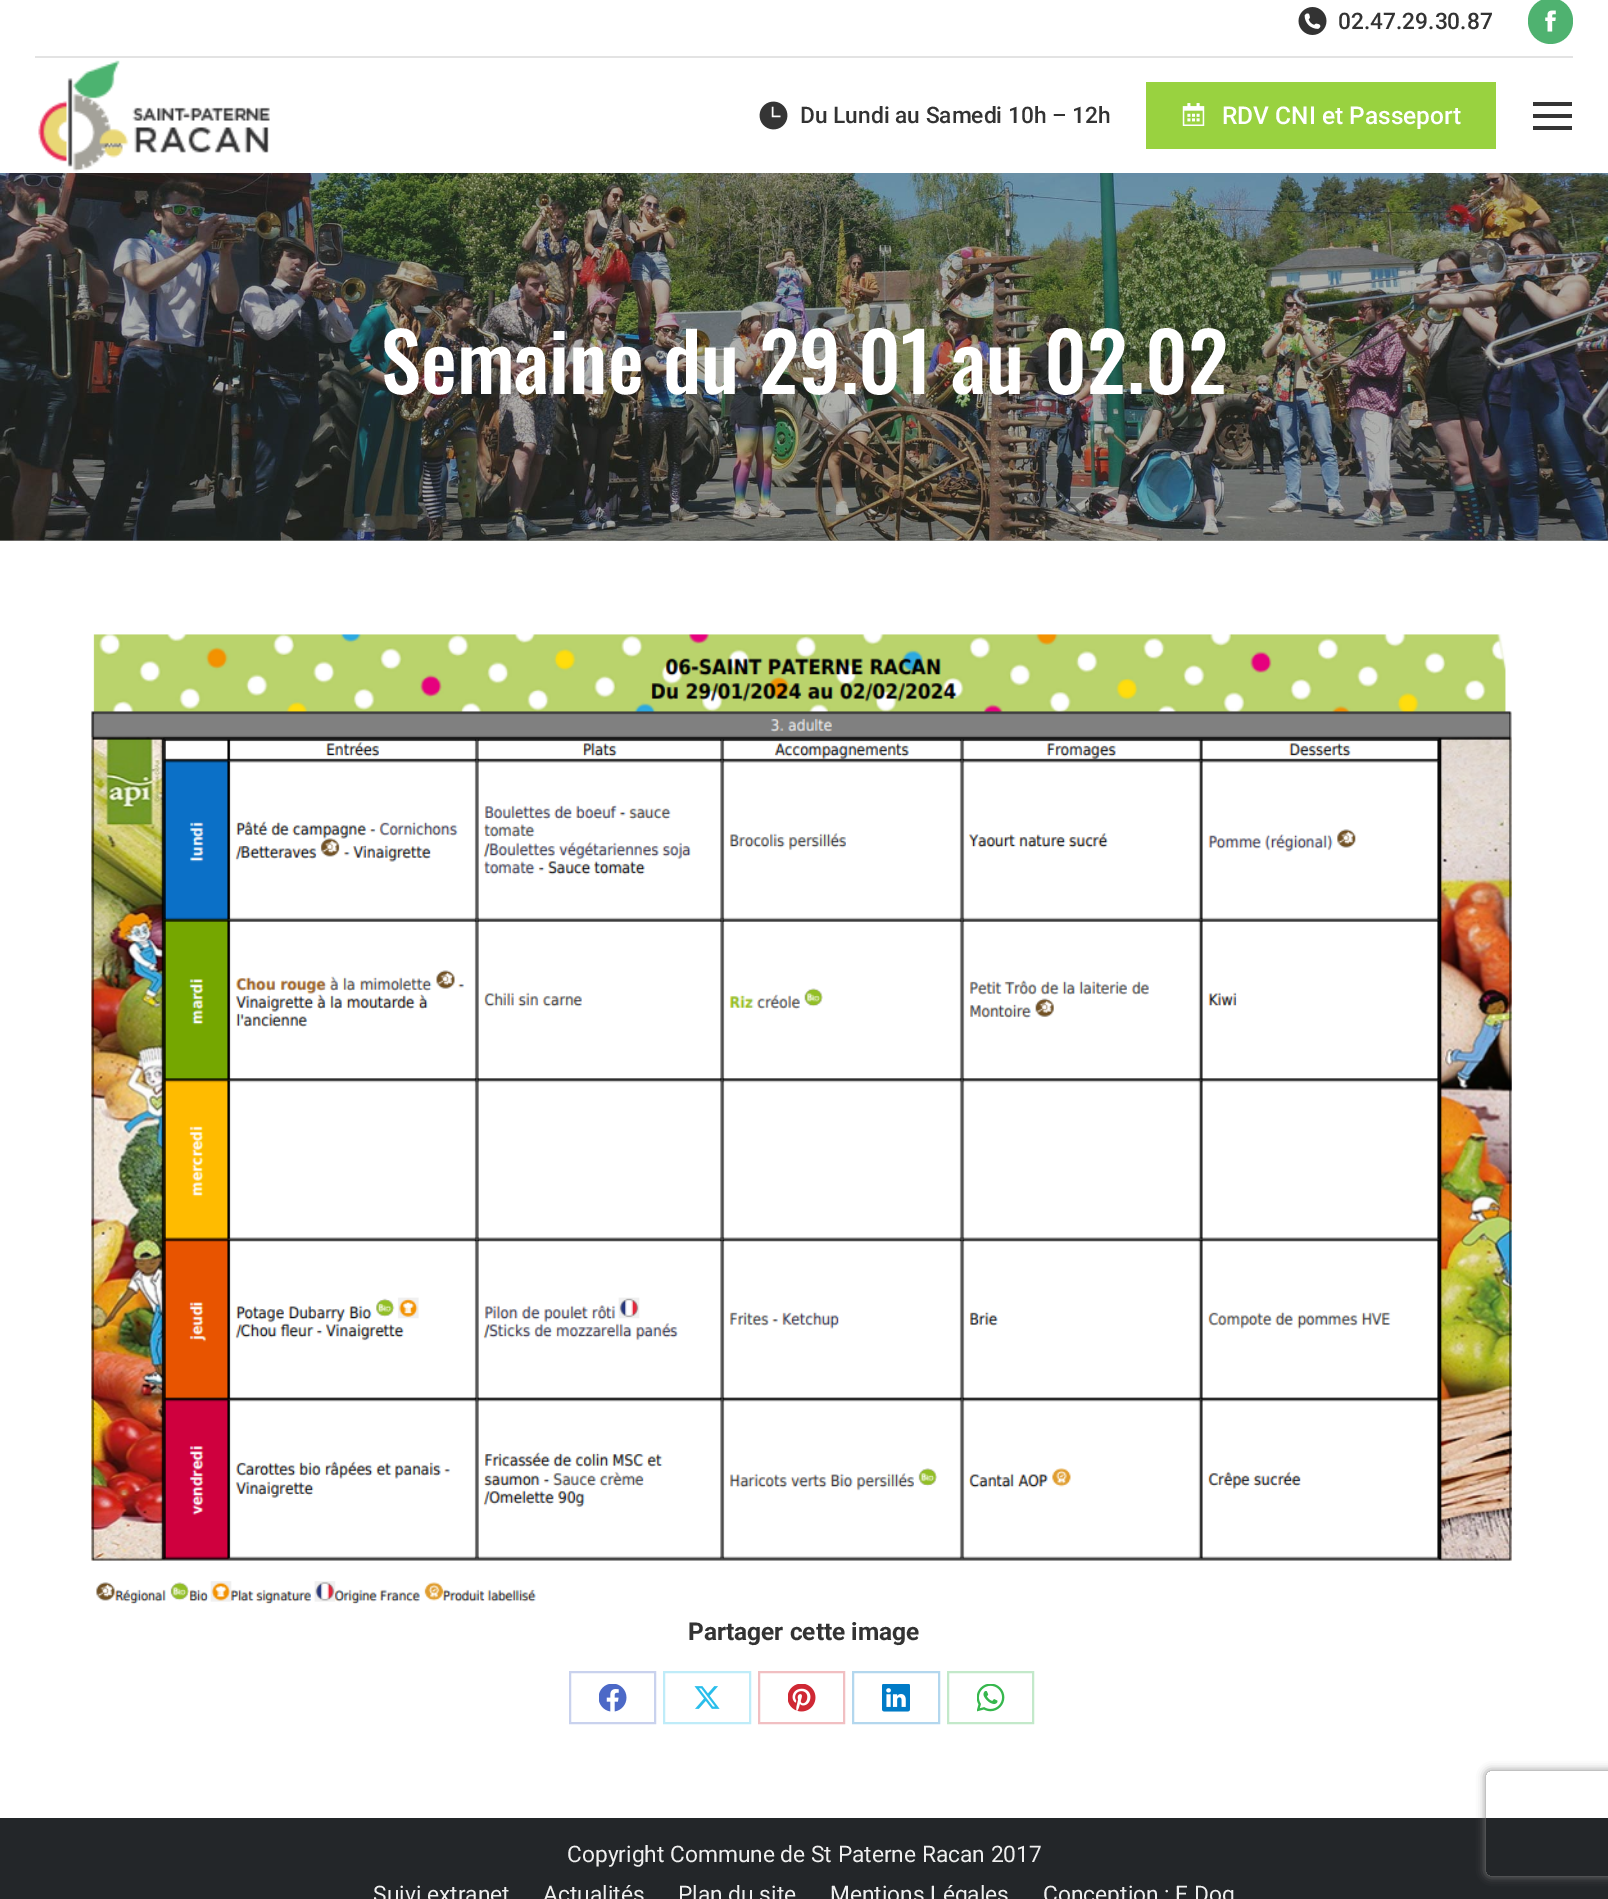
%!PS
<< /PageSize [1608 1899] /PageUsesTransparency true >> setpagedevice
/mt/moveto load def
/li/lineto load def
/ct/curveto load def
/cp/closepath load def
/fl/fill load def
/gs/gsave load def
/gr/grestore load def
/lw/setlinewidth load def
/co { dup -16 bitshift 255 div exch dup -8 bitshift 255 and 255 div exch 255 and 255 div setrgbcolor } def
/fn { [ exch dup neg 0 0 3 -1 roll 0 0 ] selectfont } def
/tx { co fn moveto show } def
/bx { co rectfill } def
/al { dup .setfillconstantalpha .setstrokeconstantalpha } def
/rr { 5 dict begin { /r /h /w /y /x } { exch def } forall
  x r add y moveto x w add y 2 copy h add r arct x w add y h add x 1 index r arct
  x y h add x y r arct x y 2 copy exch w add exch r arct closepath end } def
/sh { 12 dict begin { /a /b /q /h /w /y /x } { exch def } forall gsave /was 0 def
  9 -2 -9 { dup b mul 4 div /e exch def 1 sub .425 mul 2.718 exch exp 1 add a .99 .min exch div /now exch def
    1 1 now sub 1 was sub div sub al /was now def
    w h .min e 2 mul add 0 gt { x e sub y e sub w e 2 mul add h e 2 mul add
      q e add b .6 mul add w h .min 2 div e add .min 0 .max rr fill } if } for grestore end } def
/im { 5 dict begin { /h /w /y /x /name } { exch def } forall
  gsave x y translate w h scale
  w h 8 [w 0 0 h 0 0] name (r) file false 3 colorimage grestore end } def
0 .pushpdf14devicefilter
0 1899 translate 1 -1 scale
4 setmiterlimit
0 0 1608 1899 16#FFFFFF bx
(media/1.raw) 1298 7 29 28 im
16#4FB270 co
1528 -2 45 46 22.5 rr fl
(media/2.raw) 1545 10 11 22 im
35 56 1538 2 16#E3E3E3 bx
(media/3.raw) 38 60 232 112 im
(media/4.raw) 759 101 29 29 im
1146 82 350 67 16#99D240 bx
(media/5.raw) 1182 103 23 23 im
1533 102 39 4 16#353535 bx
1533 114 39 4 16#353535 bx
1533 126 39 4 16#353535 bx
0 540 1608 1 16#A7A8A4 bx
(media/6.raw) 0 173 1608 368 im
(media/7.raw) 91 634 1421 970 im
16#C9D2EE co
2 lw
570 1672 85 51 rectstroke
(media/8.raw) 599 1684 28 28 im
16#BFECF9 co
664 1672 86 51 rectstroke
(media/9.raw) 694 1686 26 23 im
16#F1BFC2 co
759 1672 85 51 rectstroke
(media/10.raw) 788 1684 28 28 im
16#B3D7EE co
853 1672 86 51 rectstroke
(media/11.raw) 882 1684 28 28 im
16#C3E9CA co
948 1672 85 51 rectstroke
(media/12.raw) 977 1684 28 28 im
0 1818 1608 81 16#232629 bx
gs
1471 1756 mt 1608 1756 li 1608 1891 li 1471 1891 li cp 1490 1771 mt 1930 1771 li 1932 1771 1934 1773 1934 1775 ct 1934 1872 li 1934 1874 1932 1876 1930 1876 ct 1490 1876 li 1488 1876 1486 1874 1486 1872 ct 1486 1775 li 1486 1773 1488 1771 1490 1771 ct cp eoclip newpath
16#808080 co
1486 1771 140 105 4 4.5 1 sh
gr
(02.47.29.30.87) 1338 29 /Roboto-Medium 22.75 16#333333 tx
(Du Lundi au Samedi 10h – 12h) 800 123 /Roboto-Medium 22.75 16#333333 tx
(RDV CNI et Passeport) 1222 124 /Roboto-Medium 24.5 16#FFFFFF tx
(Semaine du 29.01 au 02.02) 381 394 /Oswald-Medium 80.5 16#FFFFFF tx
(Partager cette image) 688 1640 /Roboto-Bold 24.5 16#333333 tx
(Copyright Commune de St Paterne Racan 2017) 567 1862 /Roboto-Regular 22.75 16#EFEFEF tx
(Suivi extranet) 373 1902 /Roboto-Regular 22.75 16#EFEFEF tx
(Actualités) 543 1902 /Roboto-Regular 22.75 16#EFEFEF tx
(Plan du site) 678 1902 /Roboto-Regular 22.75 16#EFEFEF tx
(Mentions Légales) 830 1902 /Roboto-Regular 22.75 16#EFEFEF tx
(Conception : E.Dog) 1043 1902 /Roboto-Regular 22.75 16#EFEFEF tx
.poppdf14devicefilter showpage
